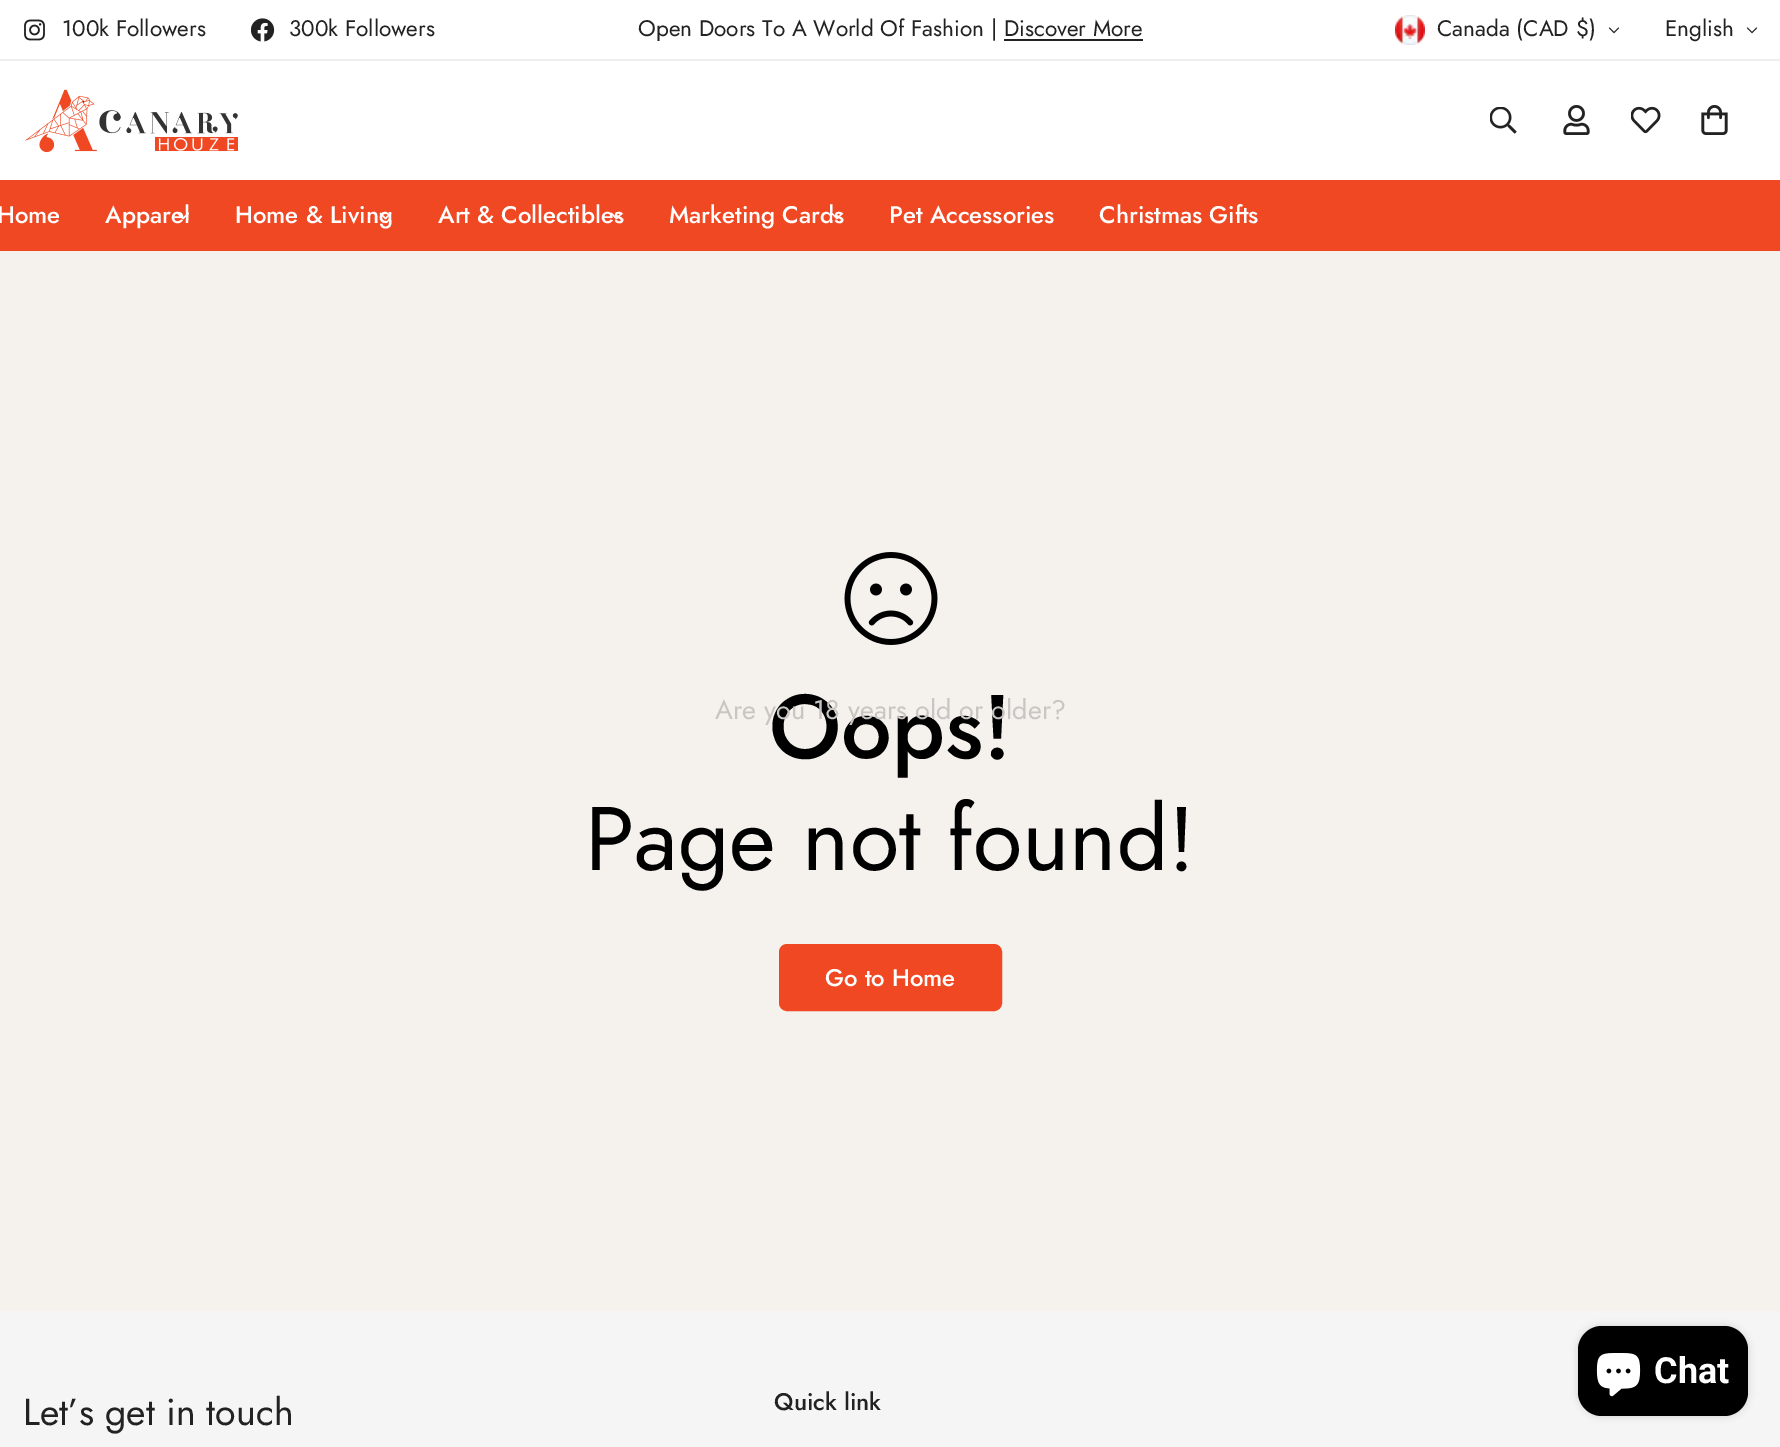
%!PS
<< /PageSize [1780 1447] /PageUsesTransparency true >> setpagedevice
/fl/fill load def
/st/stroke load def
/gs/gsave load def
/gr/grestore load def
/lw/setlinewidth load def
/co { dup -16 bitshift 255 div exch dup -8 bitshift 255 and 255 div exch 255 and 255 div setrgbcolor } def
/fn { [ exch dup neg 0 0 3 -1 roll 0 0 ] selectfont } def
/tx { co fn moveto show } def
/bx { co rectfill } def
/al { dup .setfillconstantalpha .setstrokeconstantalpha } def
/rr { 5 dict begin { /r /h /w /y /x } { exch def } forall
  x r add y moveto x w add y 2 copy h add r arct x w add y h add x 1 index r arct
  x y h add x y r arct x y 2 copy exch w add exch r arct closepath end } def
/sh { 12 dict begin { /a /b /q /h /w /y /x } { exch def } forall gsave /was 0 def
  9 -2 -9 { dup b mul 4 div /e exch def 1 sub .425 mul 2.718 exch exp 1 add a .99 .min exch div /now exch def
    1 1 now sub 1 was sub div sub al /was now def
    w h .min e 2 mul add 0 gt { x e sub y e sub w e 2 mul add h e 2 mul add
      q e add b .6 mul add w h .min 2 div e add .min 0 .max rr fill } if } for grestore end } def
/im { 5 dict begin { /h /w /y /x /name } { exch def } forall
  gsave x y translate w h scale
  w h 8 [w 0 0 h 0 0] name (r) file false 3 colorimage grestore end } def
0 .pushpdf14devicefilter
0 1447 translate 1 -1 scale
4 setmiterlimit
0 0 1780 1447 16#FFFFFF bx
0 59 1780 2 16#EEEEEE bx
(media/1.raw) 24 19 21 22 im
(media/2.raw) 251 18 24 24 im
1004 39 139 2 16#222222 bx
(media/3.raw) 1395 15 30 30 im
(media/4.raw) 1608 27 12 7 im
(media/4.raw) 1746 27 12 7 im
(media/5.raw) 24 89 214 64 im
(media/6.raw) 1490 107 27 27 im
(media/7.raw) 1563 105 27 30 im
(media/8.raw) 1631 106 30 28 im
(media/9.raw) 1701 105 27 30 im
0 180 1780 71 16#EF4823 bx
0 251 1780 1060 16#F5F1ED bx
(media/14.raw) 844 552 94 93 im
16#EF4823 co
780 945 221 65 7 rr gs fl gr
2 lw
st
0 1311 1780 136 16#F5F5F5 bx
16#000000 co
1578 1326 170 90 24 4 .15 sh
1578 1326 170 90 24 rr fl
(media/15.raw) 1596 1353 45 44 im
(100k Followers) 62 36 /Jost-Regular 22.5 16#222222 tx
(300k Followers) 289 36 /Jost-Regular 22.5 16#222222 tx
(Open Doors To A World Of Fashion | Discover More) 638 36 /Jost-Regular 22.5 16#222222 tx
(Canada \(CAD $\)) 1437 36 /Jost-Regular 22.5 16#222222 tx
(English) 1665 36 /Jost-Regular 22.5 16#222222 tx
(Home) -3 223 /Jost-Medium 24 16#FFFFFF tx
(Apparel) 105 223 /Jost-Medium 24 16#FFFFFF tx
(media/10.raw) 177 212 12 8 im
(Home & Living) 235 223 /Jost-Medium 24 16#FFFFFF tx
(media/11.raw) 379 212 13 8 im
(Art & Collectibles) 438 223 /Jost-Medium 24 16#FFFFFF tx
(media/12.raw) 610 212 13 8 im
(Marketing Cards) 669 223 /Jost-Medium 24 16#FFFFFF tx
(media/13.raw) 832 212 11 8 im
(Pet Accessories) 889 223 /Jost-Medium 24 16#FFFFFF tx
(Christmas Gifts) 1099 223 /Jost-Medium 24 16#FFFFFF tx
(Oops!) 769 758 /Jost-Medium 90 16#000000 tx
(Page not found!) 585 870 /Jost-Regular 90 16#000000 tx
(Go to Home) 825 986 /Jost-Medium 24 16#FFFFFF tx
(Are you 18 years old or older?) 715 719 /Jost-Regular 27 16#C8C5C2 tx
(Chat) 1654 1383 /Roboto-Bold 36 16#FFFFFF tx
(Let’s get in touch) 23 1425 /Jost-Regular 37.5 16#222222 tx
(Quick link) 774 1410 /Jost-Medium 24 16#222222 tx
.poppdf14devicefilter showpage
